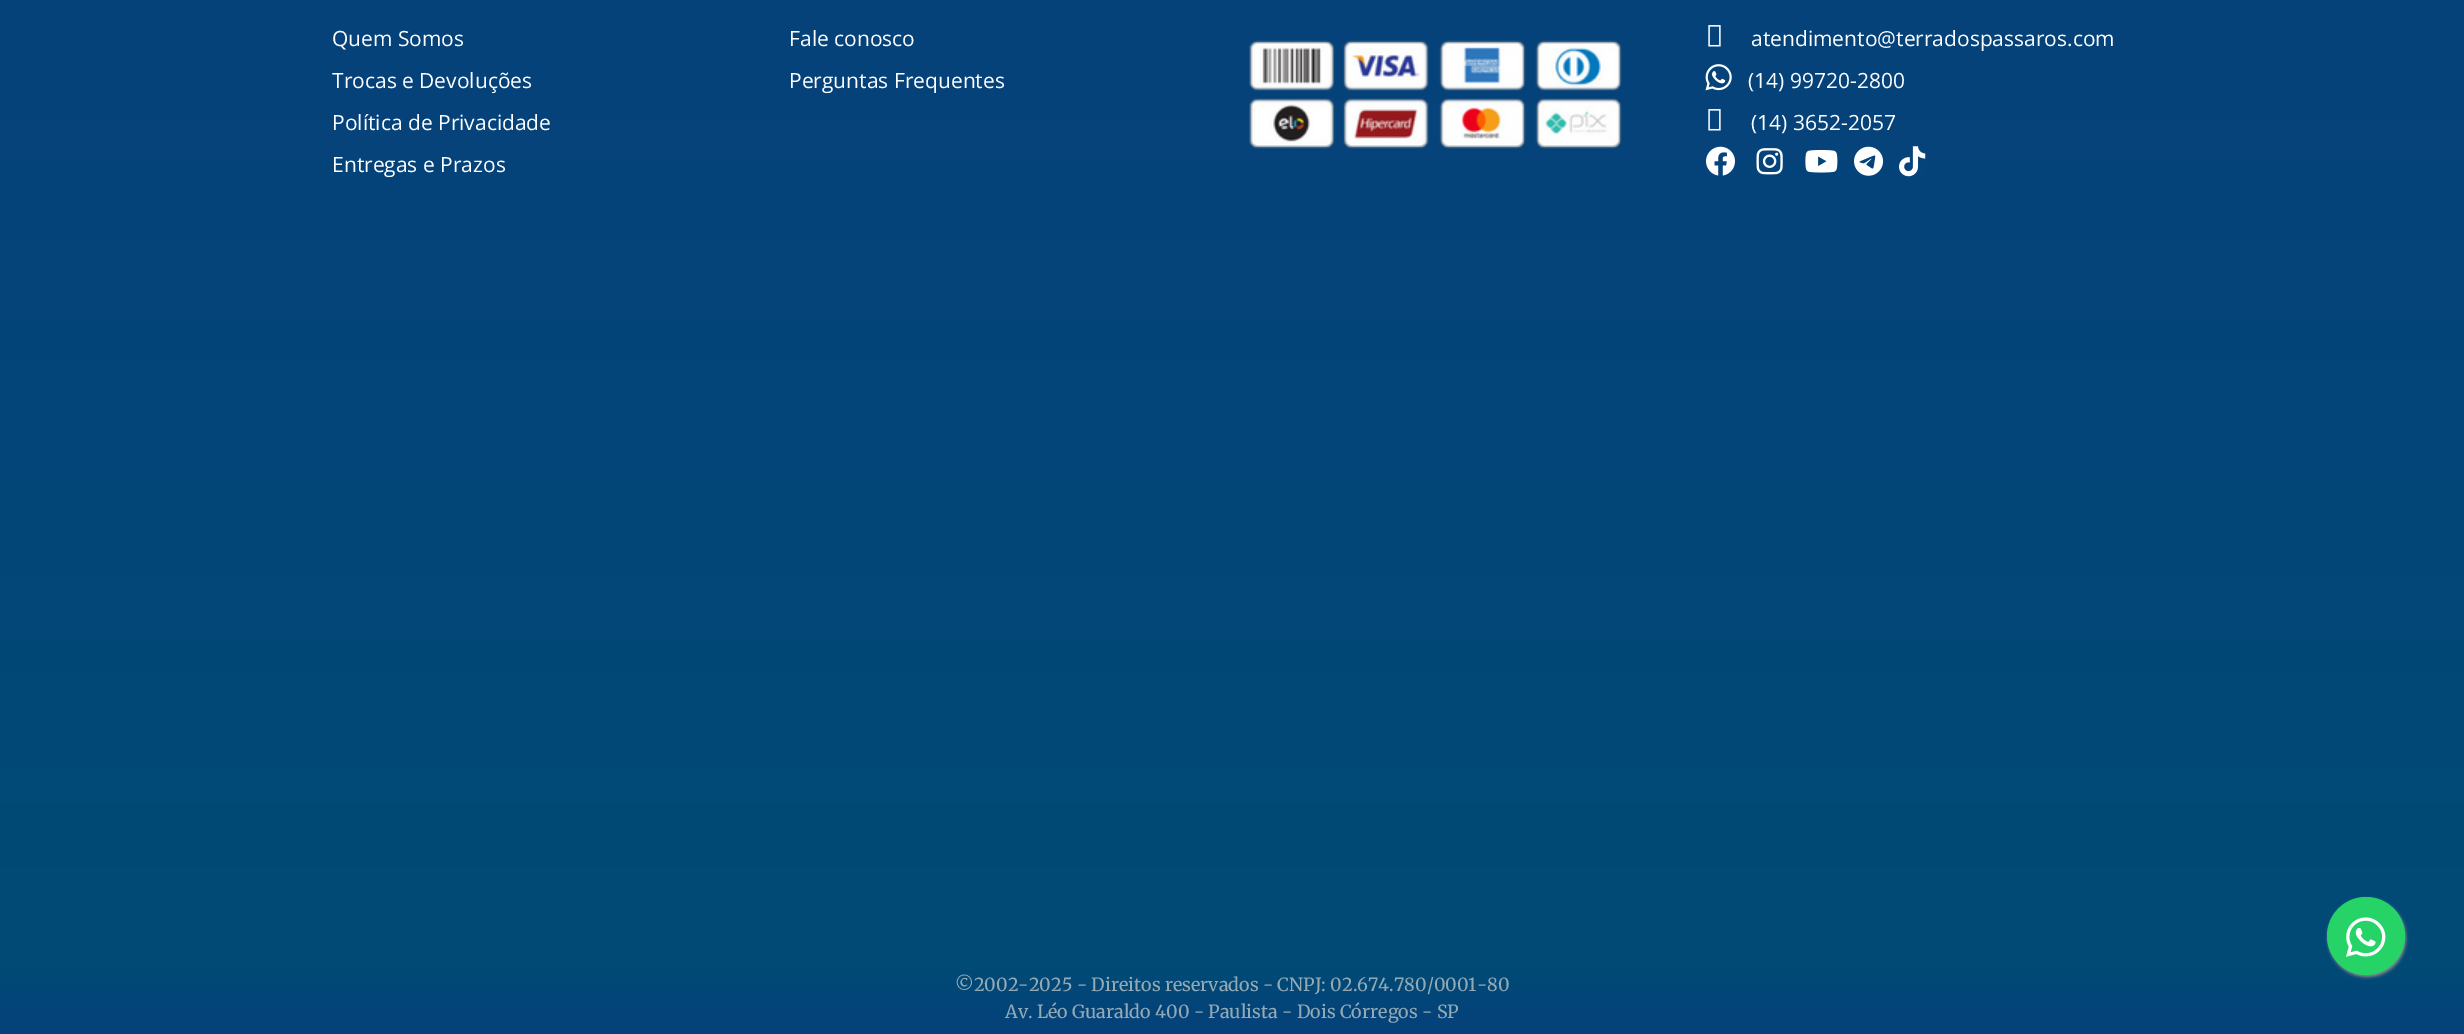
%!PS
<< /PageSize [2464 1034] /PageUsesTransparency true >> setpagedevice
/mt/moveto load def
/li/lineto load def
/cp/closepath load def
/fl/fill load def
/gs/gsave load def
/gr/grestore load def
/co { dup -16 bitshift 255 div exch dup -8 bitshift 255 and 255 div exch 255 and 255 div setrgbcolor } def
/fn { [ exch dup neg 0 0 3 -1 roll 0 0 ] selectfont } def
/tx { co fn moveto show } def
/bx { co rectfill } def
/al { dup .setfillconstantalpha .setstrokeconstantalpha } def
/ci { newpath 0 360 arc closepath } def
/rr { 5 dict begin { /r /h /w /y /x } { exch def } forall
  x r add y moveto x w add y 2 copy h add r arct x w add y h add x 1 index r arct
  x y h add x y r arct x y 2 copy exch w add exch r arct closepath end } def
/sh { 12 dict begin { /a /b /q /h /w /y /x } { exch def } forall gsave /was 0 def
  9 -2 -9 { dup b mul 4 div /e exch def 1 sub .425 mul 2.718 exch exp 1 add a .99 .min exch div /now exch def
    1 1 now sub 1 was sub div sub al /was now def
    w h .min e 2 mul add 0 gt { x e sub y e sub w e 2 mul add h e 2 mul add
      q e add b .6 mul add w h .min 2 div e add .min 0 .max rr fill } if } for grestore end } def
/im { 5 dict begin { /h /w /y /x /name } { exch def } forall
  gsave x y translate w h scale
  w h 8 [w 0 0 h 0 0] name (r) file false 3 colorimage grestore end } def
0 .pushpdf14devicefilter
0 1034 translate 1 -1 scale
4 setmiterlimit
0 0 2464 1034 16#FFFFFF bx
gs 0 0 mt 2464 0 li 2464 963 li 0 963 li cp clip newpath
<< /ShadingType 2 /ColorSpace /DeviceRGB /Coords [1232 -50 1232 963] /Extend [true true] /Function << /FunctionType 2 /Domain [0 1] /C0 [.024 .255 .482] /C1 [0 .294 .459] /N 1 >> >> shfill gr
(media/1.raw) 1249 40 373 109 im
(media/2.raw) 1708 25 13 22 im
(media/3.raw) 1705 64 27 27 im
(media/4.raw) 1708 109 13 22 im
(media/5.raw) 1706 146 29 30 im
(media/6.raw) 1756 148 27 27 im
(media/7.raw) 1805 150 33 23 im
(media/8.raw) 1854 146 30 30 im
(media/9.raw) 1899 146 27 31 im
gs 0 963 mt 2464 963 li 2464 1034 li 0 1034 li cp clip newpath
<< /ShadingType 2 /ColorSpace /DeviceRGB /Coords [1232 963 1232 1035] /Extend [true true] /Function << /FunctionType 2 /Domain [0 1] /C0 [0 .294 .459] /C1 [.024 .255 .482] /N 1 >> >> shfill gr
16#888888 co
2328 899 78 78 39 1.5 1 sh
16#25D366 co
2366 936 39 ci fl
(media/10.raw) 2346 917 40 40 im
(Quem Somos) 332 46 /OpenSans-Regular 21 16#FFFFFF tx
(Trocas e Devoluções) 332 88 /OpenSans-Regular 21 16#FFFFFF tx
(Política de Privacidade) 332 130 /OpenSans-Regular 21 16#FFFFFF tx
(Entregas e Prazos) 332 172 /OpenSans-Regular 21 16#FFFFFF tx
(Fale conosco) 789 46 /OpenSans-Regular 21 16#FFFFFF tx
(Perguntas Frequentes) 789 88 /OpenSans-Regular 21 16#FFFFFF tx
(atendimento@terradospassaros.com) 1751 46 /OpenSans-Regular 21 16#FFFFFF tx
(\(14\) 99720-2800) 1748 88 /OpenSans-Regular 21 16#FFFFFF tx
(\(14\) 3652-2057) 1751 130 /OpenSans-Regular 21 16#FFFFFF tx
(©2002-2025 - Direitos reservados - CNPJ: 02.674.780/0001-80) 955 991 /Merriweather-Regular 18 16#93AAB5 tx
(Av. Léo Guaraldo 400 - Paulista - Dois Córregos - SP) 1005 1018 /Merriweather-Regular 18 16#93AAB5 tx
.poppdf14devicefilter showpage
